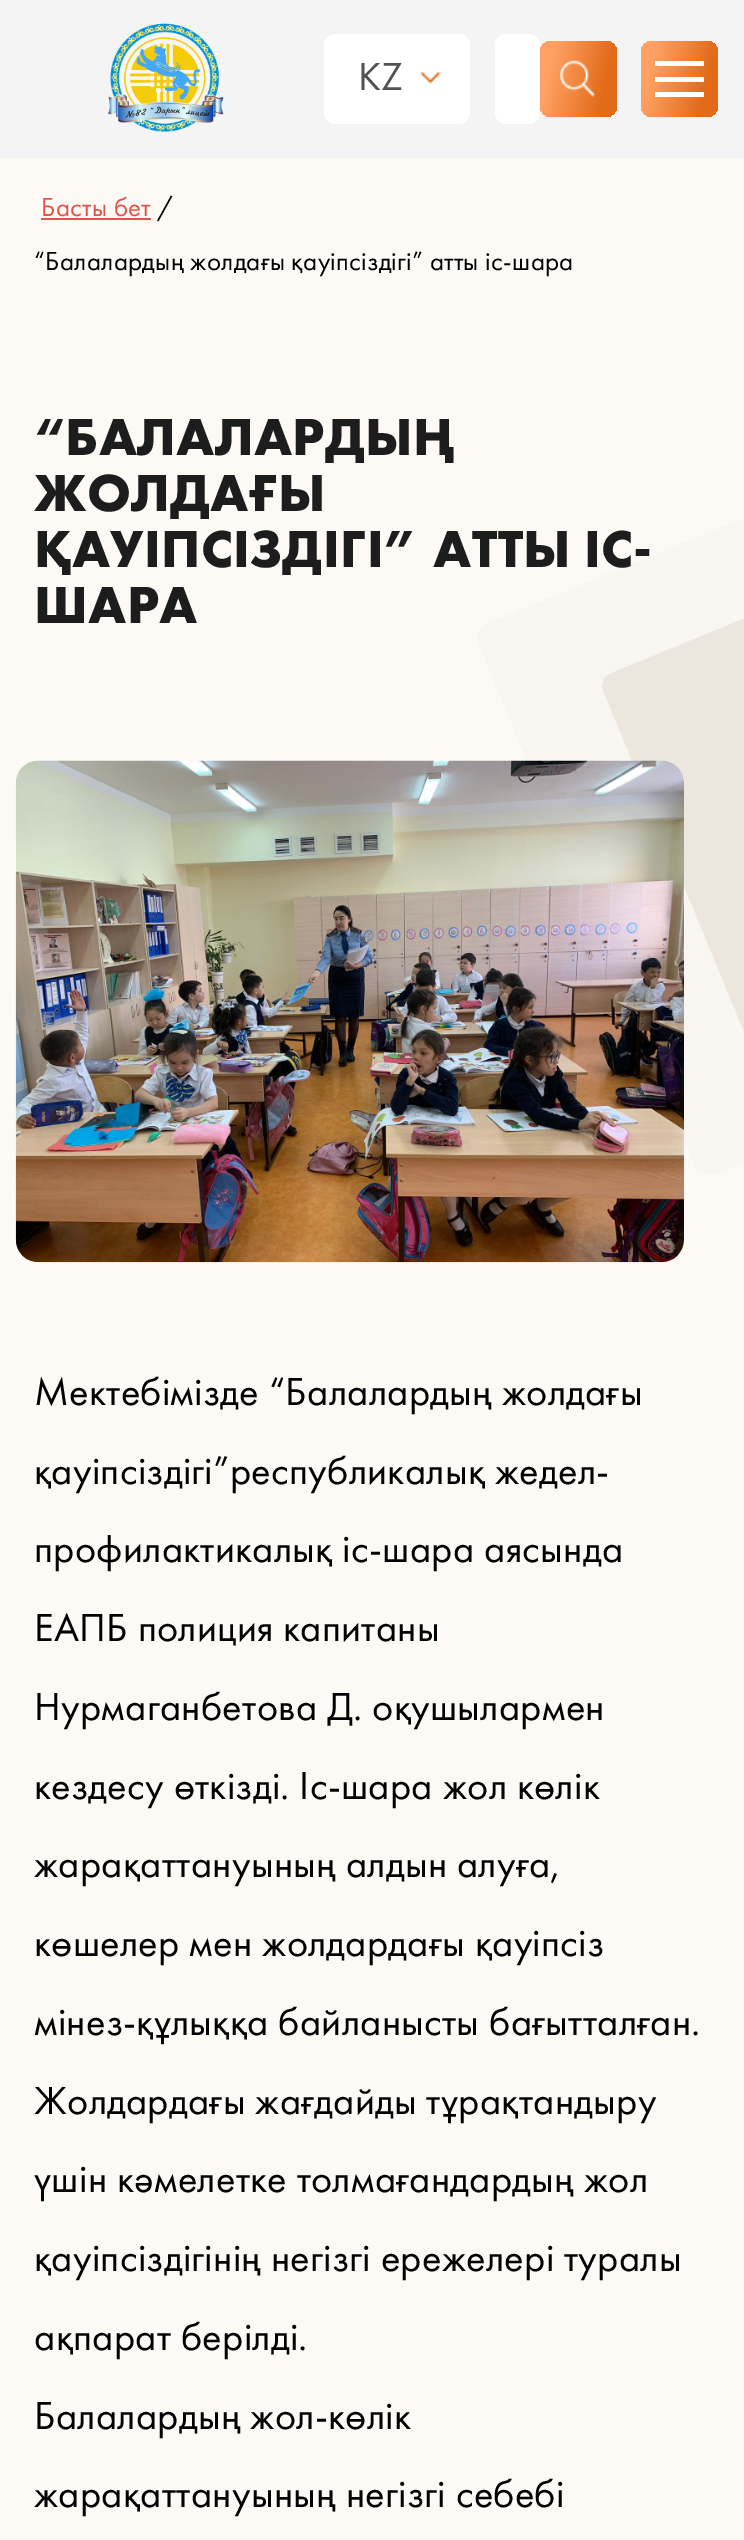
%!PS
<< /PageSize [744 2540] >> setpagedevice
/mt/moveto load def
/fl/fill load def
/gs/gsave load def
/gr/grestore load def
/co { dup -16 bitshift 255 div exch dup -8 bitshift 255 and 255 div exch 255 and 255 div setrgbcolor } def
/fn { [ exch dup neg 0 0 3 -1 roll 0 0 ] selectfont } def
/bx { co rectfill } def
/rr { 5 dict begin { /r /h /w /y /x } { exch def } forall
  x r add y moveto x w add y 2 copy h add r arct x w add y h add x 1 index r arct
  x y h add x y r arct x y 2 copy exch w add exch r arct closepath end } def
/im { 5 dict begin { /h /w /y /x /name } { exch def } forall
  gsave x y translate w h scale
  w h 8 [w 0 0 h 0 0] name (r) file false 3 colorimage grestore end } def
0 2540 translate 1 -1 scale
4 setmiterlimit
0 0 744 2540 16#FDF9F4 bx
0 0 744 158 16#F4F4F4 bx
(media/1.raw) 108 23 116 109 im
16#FFFFFF co
324 34 146 90 11 rr fl
(media/2.raw) 420 71 21 13 im
495 34 45 90 11 rr fl
gs 540 41 77 76 11 rr clip newpath
<< /ShadingType 2 /ColorSpace /DeviceRGB /Coords [623 89 534 69] /Extend [true true] /Function << /FunctionType 3 /Domain [0 1] /Functions [<< /FunctionType 2 /Domain [0 1] /C0 [.886 .42 .102] /C1 [.886 .42 .102] /N 1 >> << /FunctionType 2 /Domain [0 1] /C0 [.886 .42 .102] /C1 [1 .631 .384] /N 1 >> << /FunctionType 2 /Domain [0 1] /C0 [1 .631 .384] /C1 [1 .631 .384] /N 1 >>] /Bounds [.2 .83] /Encode [0 1 0 1 0 1] >> >> shfill gr
(media/3.raw) 560 59 35 38 im
gs 641 41 77 76 11 rr clip newpath
<< /ShadingType 2 /ColorSpace /DeviceRGB /Coords [724 89 635 69] /Extend [true true] /Function << /FunctionType 3 /Domain [0 1] /Functions [<< /FunctionType 2 /Domain [0 1] /C0 [.886 .42 .102] /C1 [.886 .42 .102] /N 1 >> << /FunctionType 2 /Domain [0 1] /C0 [.886 .42 .102] /C1 [1 .631 .384] /N 1 >> << /FunctionType 2 /Domain [0 1] /C0 [1 .631 .384] /C1 [1 .631 .384] /N 1 >>] /Bounds [.2 .83] /Encode [0 1 0 1 0 1] >> >> shfill gr
655 77 49 5 16#FFFFFF bx
655 61 49 5 16#FFFFFF bx
655 92 49 5 16#FFFFFF bx
(media/4.raw) 477 520 267 654 im
41 218 110 2 16#E0544E bx
(media/5.raw) 15 760 669 503 im
/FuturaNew-Regular 40.5 fn
16#525252 co
358 90 mt .25 0 (KZ) ashow
/FuturaNew-Regular 27 fn
16#E0544E co
41 216 mt .25 0 (Басты бет) ashow
16#000000 co
157 216 mt .25 0 (/) ashow
34 270 mt .25 0 (“Балалардың жолдағы қауіпсіздігі” атты іс-шара) ashow
/FuturaNew-Bold 54 fn
16#1D1D1D co
34 455 mt .25 0 (“БАЛАЛАРДЫҢ) ashow
34 511 mt .25 0 (ЖОЛДАҒЫ) ashow
34 567 mt .25 0 (ҚАУІПСІЗДІГІ” АТТЫ ІС-) ashow
34 623 mt .25 0 (ШАРА) ashow
/FuturaNew-Regular 40.5 fn
16#000000 co
34 1405 mt .25 0 (Мектебімізде “Балалардың жолдағы) ashow
34 1484 mt .25 0 (қауіпсіздігі”республикалық жедел-) ashow
34 1562 mt .25 0 (профилактикалық іс-шара аясында) ashow
34 1641 mt .25 0 (ЕАПБ полиция капитаны) ashow
34 1720 mt .25 0 (Нурмаганбетова Д. оқушылармен) ashow
34 1799 mt .25 0 (кездесу өткізді. Іс-шара жол көлік) ashow
34 1877 mt .25 0 (жарақаттануының алдын алуға,) ashow
34 1956 mt .25 0 (көшелер мен жолдардағы қауіпсіз) ashow
34 2035 mt .25 0 (мінез-құлыққа байланысты бағытталған.) ashow
34 2114 mt .25 0 (Жолдардағы жағдайды тұрақтандыру) ashow
34 2192 mt .25 0 (үшін кәмелетке толмағандардың жол) ashow
34 2271 mt .25 0 (қауіпсіздігінің негізгі ережелері туралы) ashow
34 2350 mt .25 0 (ақпарат берілді.) ashow
34 2429 mt .25 0 (Балалардың жол-көлік) ashow
34 2507 mt .25 0 (жарақаттануының негізгі себебі) ashow
showpage
